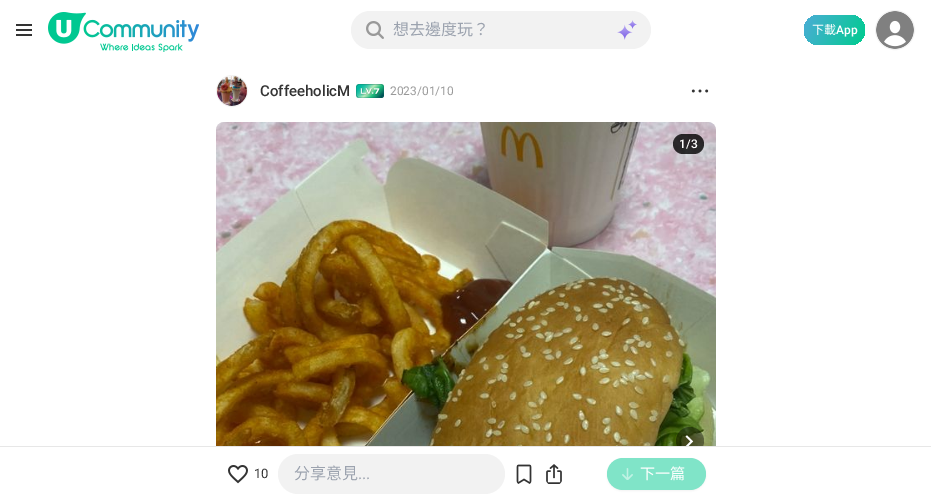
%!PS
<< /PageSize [931 501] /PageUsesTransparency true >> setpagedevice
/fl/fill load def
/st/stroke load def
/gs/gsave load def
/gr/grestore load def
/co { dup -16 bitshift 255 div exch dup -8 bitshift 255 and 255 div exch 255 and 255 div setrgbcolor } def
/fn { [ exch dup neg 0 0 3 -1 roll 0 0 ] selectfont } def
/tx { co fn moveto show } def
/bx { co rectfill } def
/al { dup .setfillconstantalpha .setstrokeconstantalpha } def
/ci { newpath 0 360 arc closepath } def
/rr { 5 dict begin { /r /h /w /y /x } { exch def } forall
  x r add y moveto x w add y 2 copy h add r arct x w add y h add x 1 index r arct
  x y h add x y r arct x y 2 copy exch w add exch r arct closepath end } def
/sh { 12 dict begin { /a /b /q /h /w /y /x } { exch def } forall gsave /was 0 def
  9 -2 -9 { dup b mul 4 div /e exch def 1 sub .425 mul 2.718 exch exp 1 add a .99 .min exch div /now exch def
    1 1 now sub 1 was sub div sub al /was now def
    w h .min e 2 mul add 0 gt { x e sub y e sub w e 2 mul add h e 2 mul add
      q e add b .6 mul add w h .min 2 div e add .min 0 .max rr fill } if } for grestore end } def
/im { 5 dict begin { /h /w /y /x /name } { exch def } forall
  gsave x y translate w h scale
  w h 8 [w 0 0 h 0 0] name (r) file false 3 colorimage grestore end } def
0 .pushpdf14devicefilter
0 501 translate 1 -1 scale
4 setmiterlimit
0 0 931 501 16#FFFFFF bx
(media/1.raw) 16 24 16 12 im
(media/2.raw) 48 12 151 40 im
16#F2F2F2 co
351 11 300 38 19 rr fl
(media/3.raw) 366 21 18 18 im
(media/4.raw) 617 20 20 20 im
gs 804 15 61 30 15 rr clip newpath
<< /ShadingType 2 /ColorSpace /DeviceRGB /Coords [804 16 865 44] /Extend [true true] /Function << /FunctionType 2 /Domain [0 1] /C0 [.294 .678 .839] /C1 [0 .8 .561] /N 1 >> >> shfill gr
895 30 19.5 ci st
(media/5.raw) 876 11 38 38 im
232 91 15.5 ci st
(media/6.raw) 217 76 30 30 im
(media/7.raw) 356 84 28 14 im
(media/8.raw) 691 89 18 4 im
(media/9.raw) 216 122 500 324 im
0.8 al
16#000000 co
673 134 31 20 10 rr fl
0.4 al
690 441 14 ci fl
1 al
(media/10.raw) 685 435 9 11 im
677 447 26 8 16#FFFFFF bx
0 446 931 1 16#E7E7E7 bx
(media/11.raw) 228 465 20 19 im
16#F2F2F2 co
278 454 227 40 20 rr fl
(media/12.raw) 516 464 16 20 im
(media/13.raw) 546 464 16 20 im
16#808080 co
608 460 97 30 15 1 .1 sh
607 459 99 32 16 1.5 .1 sh
16#80E4C8 co
607 458 99 32 16 rr fl
(media/14.raw) 622 468 11 12 im
(想去邊度玩？) 393 35 /NotoSansCJKHK-Regular 16 16#9CA3AF tx
(下載) 812 34 /NotoSansCJKHK-Regular 12 16#FFFFFF tx
(App) 836 34 /Roboto-Medium 12 16#FFFFFF tx
(CoffeeholicM) 260 96 /Roboto-Medium 15 16#333333 tx
(2023/01/10) 390 95 /Roboto-Regular 12 16#999999 tx
(1/3) 679 148 /Roboto-Medium 12 16#FFFFFF tx
(10) 254 478 /Roboto-Regular 13 16#333333 tx
(分享意見) 294 479 /NotoSansCJKHK-Regular 16 16#9CA3AF tx
(...) 358 479 /Roboto-Regular 16 16#9CA3AF tx
(下一篇) 640 479 /NotoSansCJKHK-Regular 15 16#FFFFFF tx
.poppdf14devicefilter showpage
